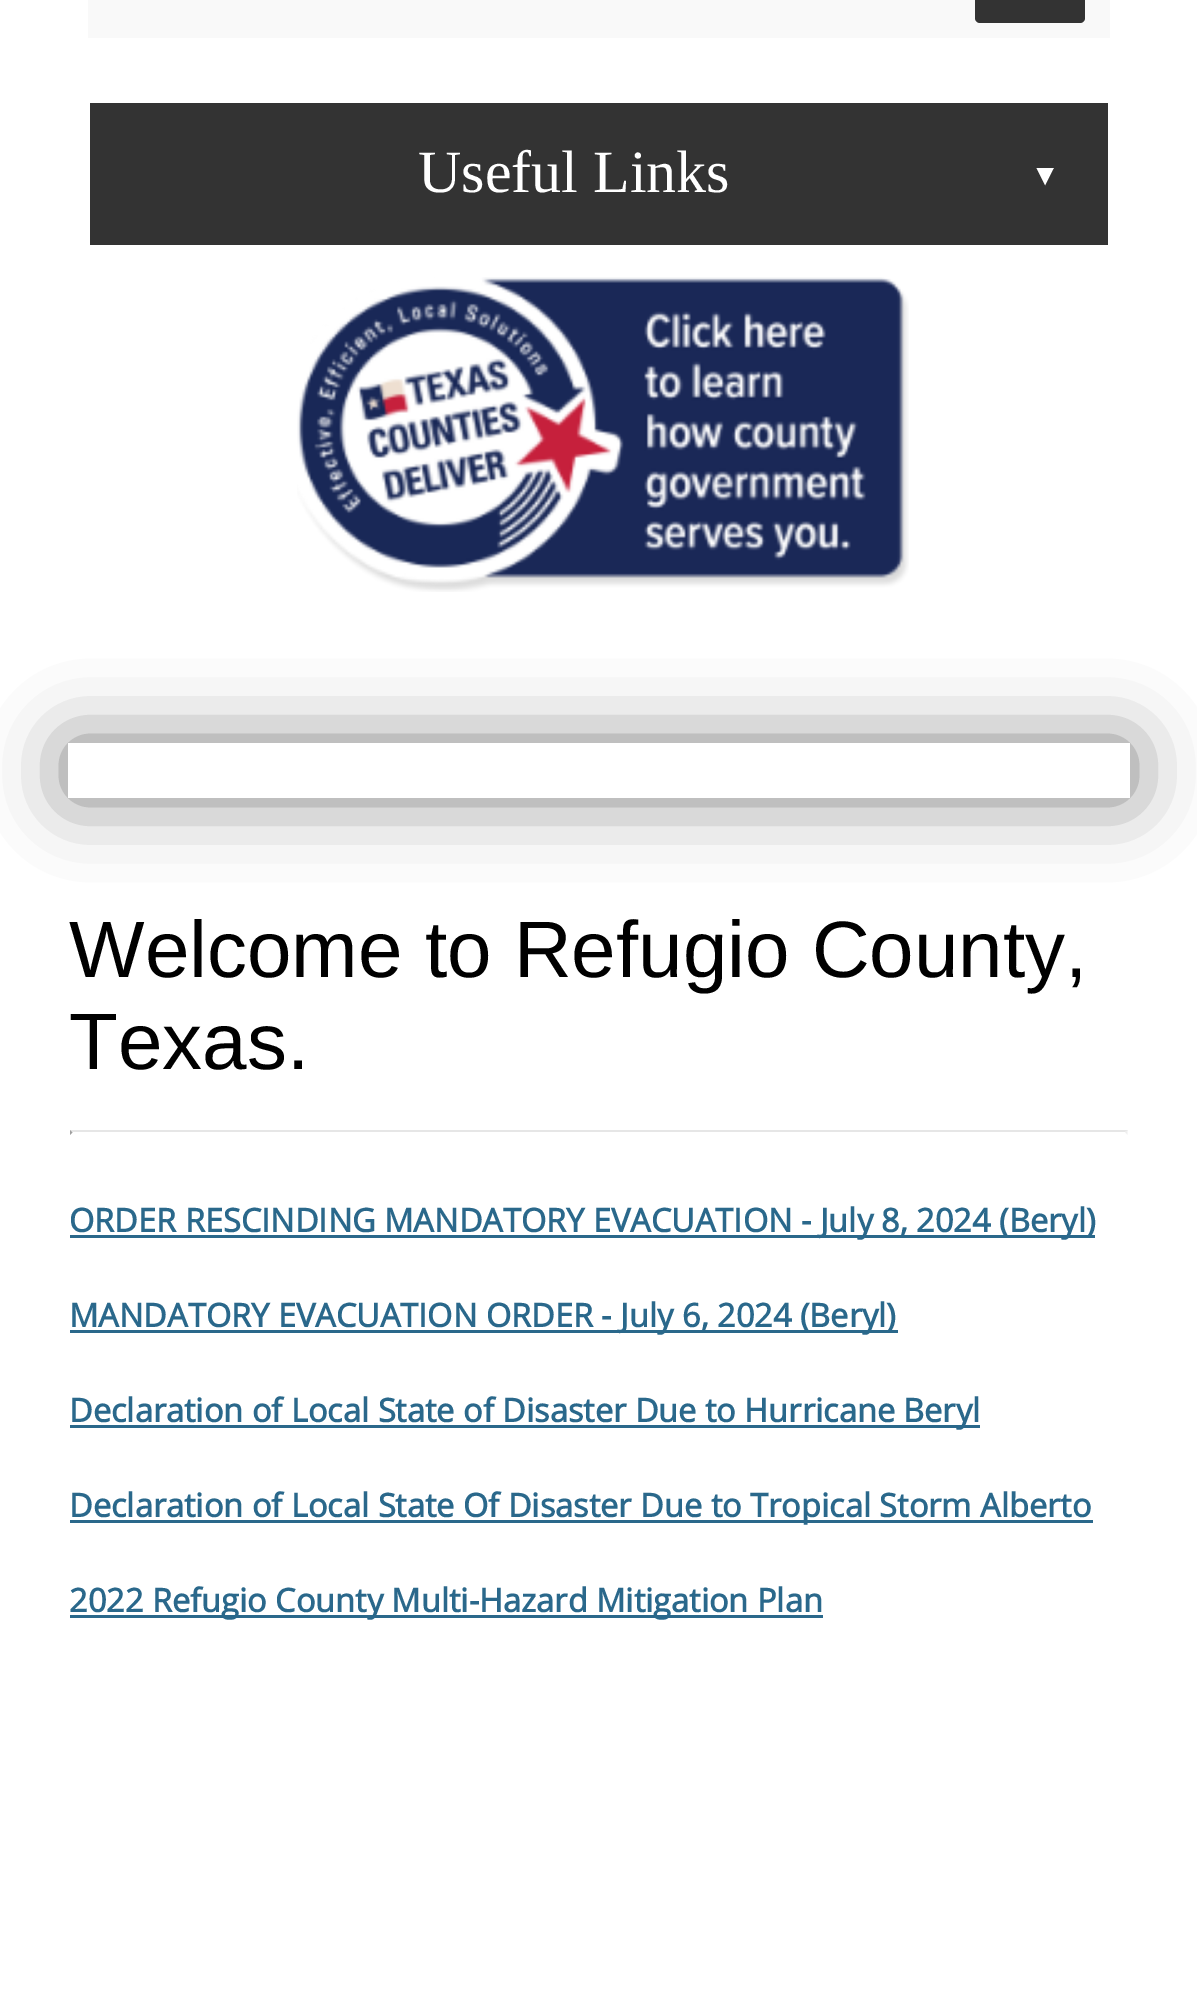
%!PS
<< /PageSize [1197 1989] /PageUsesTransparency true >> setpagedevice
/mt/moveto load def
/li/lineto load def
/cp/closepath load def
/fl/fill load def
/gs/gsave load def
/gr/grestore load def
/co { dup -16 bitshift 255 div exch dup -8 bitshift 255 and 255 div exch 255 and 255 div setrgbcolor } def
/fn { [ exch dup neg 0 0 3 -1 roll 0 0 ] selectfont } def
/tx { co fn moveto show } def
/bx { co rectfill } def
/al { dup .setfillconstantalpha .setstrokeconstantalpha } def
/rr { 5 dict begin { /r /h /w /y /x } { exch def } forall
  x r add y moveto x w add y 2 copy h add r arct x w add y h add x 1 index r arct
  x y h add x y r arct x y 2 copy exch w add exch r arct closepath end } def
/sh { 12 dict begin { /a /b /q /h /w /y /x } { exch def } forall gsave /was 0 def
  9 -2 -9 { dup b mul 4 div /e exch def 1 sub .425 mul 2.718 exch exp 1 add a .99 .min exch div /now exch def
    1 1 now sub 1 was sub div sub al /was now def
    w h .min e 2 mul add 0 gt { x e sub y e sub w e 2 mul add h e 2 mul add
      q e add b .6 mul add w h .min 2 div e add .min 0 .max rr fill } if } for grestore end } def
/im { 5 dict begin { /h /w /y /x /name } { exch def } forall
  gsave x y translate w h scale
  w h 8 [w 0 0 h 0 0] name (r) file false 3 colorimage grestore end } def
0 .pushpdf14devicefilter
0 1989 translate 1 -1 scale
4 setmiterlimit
0 0 1197 1989 16#FFFFFF bx
88 0 1022 38 16#F9F9F9 bx
16#333333 co
975 -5 110 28 5 rr fl
90 103 1018 142 16#333333 bx
(media/1.raw) 297 277 612 315 im
gs
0 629 mt 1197 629 li 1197 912 li 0 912 li cp 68 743 mt 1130 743 li 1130 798 li 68 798 li cp eoclip newpath
16#000000 co
68 743 1062 55 0 37.5 .5 sh
gr
16#E6E6E6 co
70 1130 mt 1128 1130 li 1125 1132 li 72 1132 li cp fl
16#EEEEEE co
1127.5 1130 mt 1127.5 1135 li 1125 1132.5 li cp fl
0.4 al
16#FFFFFF co
1128 1135 mt 70 1135 li 72 1132 li 1125 1132 li cp fl
1 al
16#9F9F9F co
70 1135 mt 70 1130 li 72.5 1132.5 li cp fl
70 1235 1025 3 16#2A688B bx
70 1330 828 3 16#2A688B bx
70 1425 910 3 16#2A688B bx
70 1520 1023 3 16#2A688B bx
70 1615 753 3 16#2A688B bx
(Useful Links) 418 192 /LiberationSerif-Regular 60 16#FFFFFF tx
/LiberationSerif-Regular 30 fn
gs 1060 168 translate 180 rotate 0 0 mt (▲) show gr
(Welcome to Refugio County,) 69 977 /LiberationSans-Regular 80 16#000000 tx
(Texas.) 69 1069 /LiberationSans-Regular 80 16#000000 tx
(ORDER RESCINDING MANDATORY EVACUATION - July 8, 2024 \(Beryl\)) 69 1232 /OpenSans-Bold 32.5 16#2A688B tx
(MANDATORY EVACUATION ORDER - July 6, 2024 \(Beryl\)) 69 1327 /OpenSans-Bold 32.5 16#2A688B tx
(Declaration of Local State of Disaster Due to Hurricane Beryl) 69 1422 /OpenSans-Bold 32.5 16#2A688B tx
(Declaration of Local State Of Disaster Due to Tropical Storm Alberto) 69 1517 /OpenSans-Bold 32.5 16#2A688B tx
(2022 Refugio County Multi-Hazard Mitigation Plan) 69 1612 /OpenSans-Bold 32.5 16#2A688B tx
.poppdf14devicefilter showpage
